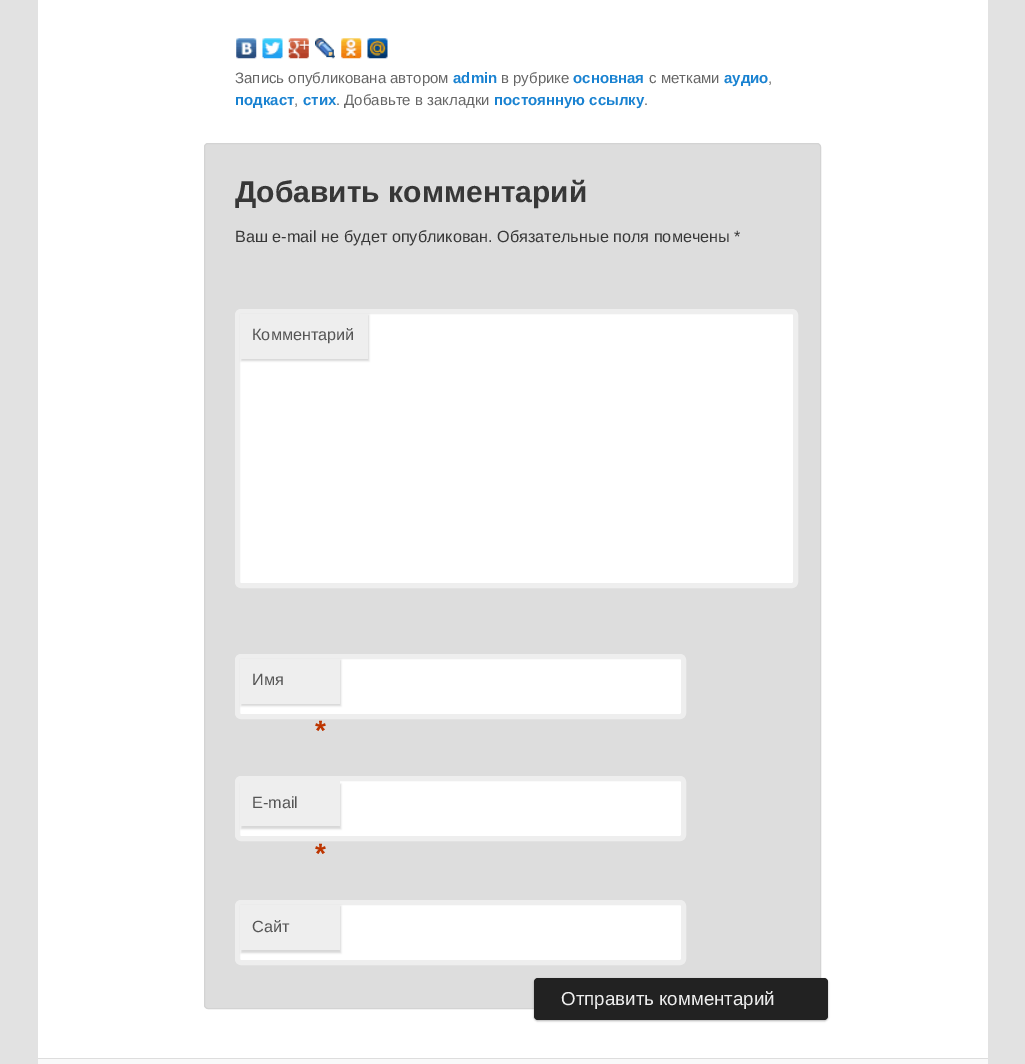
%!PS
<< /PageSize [1025 1064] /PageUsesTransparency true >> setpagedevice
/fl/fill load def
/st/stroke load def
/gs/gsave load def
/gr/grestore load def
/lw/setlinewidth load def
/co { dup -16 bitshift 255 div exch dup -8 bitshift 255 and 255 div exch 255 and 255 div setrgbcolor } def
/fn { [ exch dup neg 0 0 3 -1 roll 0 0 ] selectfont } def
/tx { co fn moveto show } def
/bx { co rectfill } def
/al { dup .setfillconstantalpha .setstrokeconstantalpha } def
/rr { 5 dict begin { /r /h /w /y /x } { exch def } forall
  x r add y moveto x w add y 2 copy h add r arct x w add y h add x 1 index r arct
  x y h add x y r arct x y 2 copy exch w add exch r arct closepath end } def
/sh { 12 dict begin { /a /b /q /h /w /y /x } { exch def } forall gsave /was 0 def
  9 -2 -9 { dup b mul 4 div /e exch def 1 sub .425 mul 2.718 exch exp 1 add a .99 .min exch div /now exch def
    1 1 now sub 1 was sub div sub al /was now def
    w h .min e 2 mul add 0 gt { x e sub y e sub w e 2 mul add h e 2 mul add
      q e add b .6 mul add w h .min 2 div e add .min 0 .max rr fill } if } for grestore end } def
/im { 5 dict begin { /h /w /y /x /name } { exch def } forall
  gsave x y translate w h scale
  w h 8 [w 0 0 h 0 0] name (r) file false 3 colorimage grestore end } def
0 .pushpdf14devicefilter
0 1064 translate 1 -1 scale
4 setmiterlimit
0 0 1025 1064 16#E2E2E2 bx
38 0 950 1058 16#FFFFFF bx
(media/1.raw) 236 38 21 21 im
(media/2.raw) 262 38 21 21 im
(media/3.raw) 288 38 21 21 im
(media/4.raw) 315 38 20 21 im
(media/5.raw) 341 38 21 21 im
(media/6.raw) 367 38 21 21 im
16#DDDDDD co
204.5 143.5 616 865 3.5 rr gs fl gr
16#D3D3D3 co
st
16#FFFFFF co
237.5 311.5 558 274 3.5 rr gs fl gr
16#EEEEEE co
5 lw
st
16#CCCCCC co
241 315 128 46 0 1 .8 sh
240 314 128 45 16#EEEEEE bx
16#FFFFFF co
237.5 656.5 446 60 3.5 rr gs fl gr
16#EEEEEE co
st
16#CCCCCC co
241 660 100 46 0 1 .8 sh
240 659 100 45 16#EEEEEE bx
16#FFFFFF co
237.5 778.5 446 60 3.5 rr gs fl gr
16#EEEEEE co
st
16#CCCCCC co
241 784 100 45 0 1 .8 sh
240 781 100 45 16#EEEEEE bx
16#FFFFFF co
237.5 902.5 446 60 3.5 rr gs fl gr
16#EEEEEE co
st
16#CCCCCC co
241 906 100 47 0 1 .8 sh
240 905 100 45 16#EEEEEE bx
16#000000 co
534 979 294 42 4 1 .3 sh
16#222222 co
534 978 294 42 4 rr fl
38 1059 950 5 16#F9F9F9 bx
38 1058 950 1 16#DDDDDD bx
(Запись опубликована автором) 235 83 /LiberationSans-Regular 15 16#666666 tx
(admin) 453 83 /LiberationSans-Bold 15 16#1982D1 tx
(в рубрике) 501 83 /LiberationSans-Regular 15 16#666666 tx
(основная) 573 83 /LiberationSans-Bold 15 16#1982D1 tx
(с метками) 649 83 /LiberationSans-Regular 15 16#666666 tx
(аудио) 724 83 /LiberationSans-Bold 15 16#1982D1 tx
(,) 768 83 /LiberationSans-Regular 15 16#666666 tx
(подкаст) 235 105 /LiberationSans-Bold 15 16#1982D1 tx
(,) 294 105 /LiberationSans-Regular 15 16#666666 tx
(стих) 303 105 /LiberationSans-Bold 15 16#1982D1 tx
(. Добавьте в закладки) 336 105 /LiberationSans-Regular 15 16#666666 tx
(постоянную ссылку) 494 105 /LiberationSans-Bold 15 16#1982D1 tx
(.) 644 105 /LiberationSans-Regular 15 16#666666 tx
(Добавить комментарий) 235 202 /LiberationSans-Bold 30 16#373737 tx
(Ваш e-mail не будет опубликован. Обязательные поля помечены *) 235 242 /LiberationSans-Regular 16.25 16#373737 tx
(Комментарий) 252 340 /LiberationSans-Regular 16.25 16#555555 tx
(Имя) 252 685 /LiberationSans-Regular 16.25 16#555555 tx
(*) 315 740 /LiberationSans-Bold 28 16#BD3500 tx
(E-mail) 252 808 /LiberationSans-Regular 16.25 16#555555 tx
(*) 315 863 /LiberationSans-Bold 28 16#BD3500 tx
(Сайт) 252 932 /LiberationSans-Regular 16.25 16#555555 tx
(Отправить комментарий) 561 1005 /LiberationSans-Regular 18.75 16#EEEEEE tx
.poppdf14devicefilter showpage
